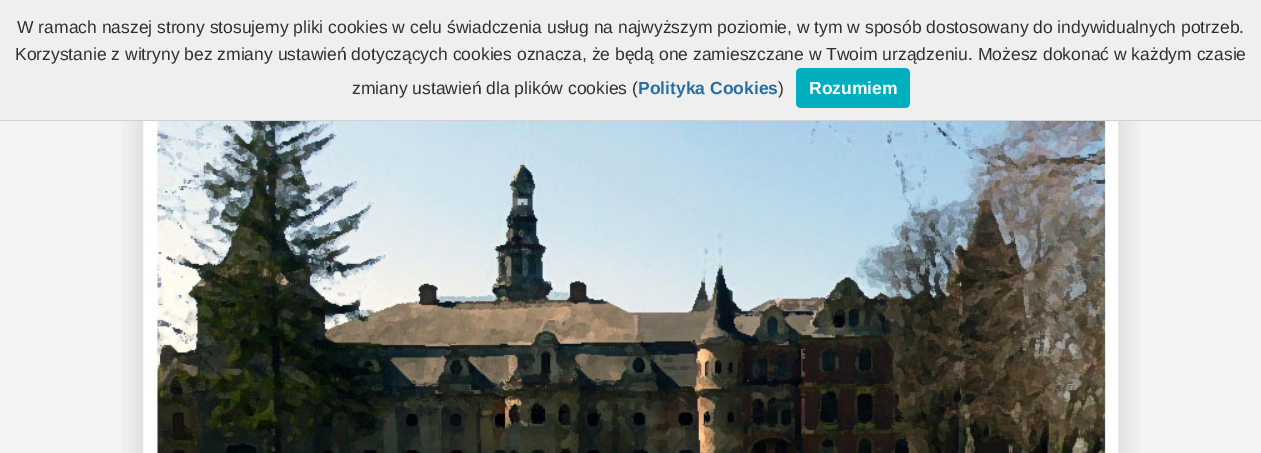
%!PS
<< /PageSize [1261 453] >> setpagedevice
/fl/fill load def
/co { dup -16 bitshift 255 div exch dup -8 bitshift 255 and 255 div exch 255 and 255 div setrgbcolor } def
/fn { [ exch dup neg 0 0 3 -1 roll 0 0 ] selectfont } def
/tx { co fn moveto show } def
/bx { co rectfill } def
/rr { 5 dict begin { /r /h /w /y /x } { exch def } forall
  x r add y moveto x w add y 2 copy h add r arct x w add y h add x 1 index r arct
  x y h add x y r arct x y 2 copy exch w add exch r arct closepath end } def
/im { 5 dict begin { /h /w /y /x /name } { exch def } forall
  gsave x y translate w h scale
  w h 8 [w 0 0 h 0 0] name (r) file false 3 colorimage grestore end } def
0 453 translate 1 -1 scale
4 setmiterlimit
0 0 1261 453 16#F4F4F4 bx
(media/1.raw) 121 121 1019 332 im
0 0 1261 120 16#EFEFEF bx
0 120 1261 1 16#D3D0D0 bx
16#00AFBF co
796 68 114 40 5 rr fl
(media/2.raw) 156 121 951 332 im
(W ramach naszej strony stosujemy pliki cookies w celu świadczenia usług na najwyższym poziomie, w tym w sposób dostosowany do indywidualnych potrzeb.) 17 33 /LiberationSans-Regular 17.5 16#303030 tx
(Korzystanie z witryny bez zmiany ustawień dotyczących cookies oznacza, że będą one zamieszczane w Twoim urządzeniu. Możesz dokonać w każdym czasie) 15 60 /LiberationSans-Regular 17.5 16#303030 tx
(zmiany ustawień dla plików cookies \() 352 94 /LiberationSans-Regular 17.5 16#303030 tx
(Polityka Cookies) 638 94 /LiberationSans-Bold 17.5 16#286EA0 tx
(\)) 778 94 /LiberationSans-Regular 17.5 16#303030 tx
(Rozumiem) 809 94 /LiberationSans-Bold 17.5 16#FFFFFF tx
showpage
